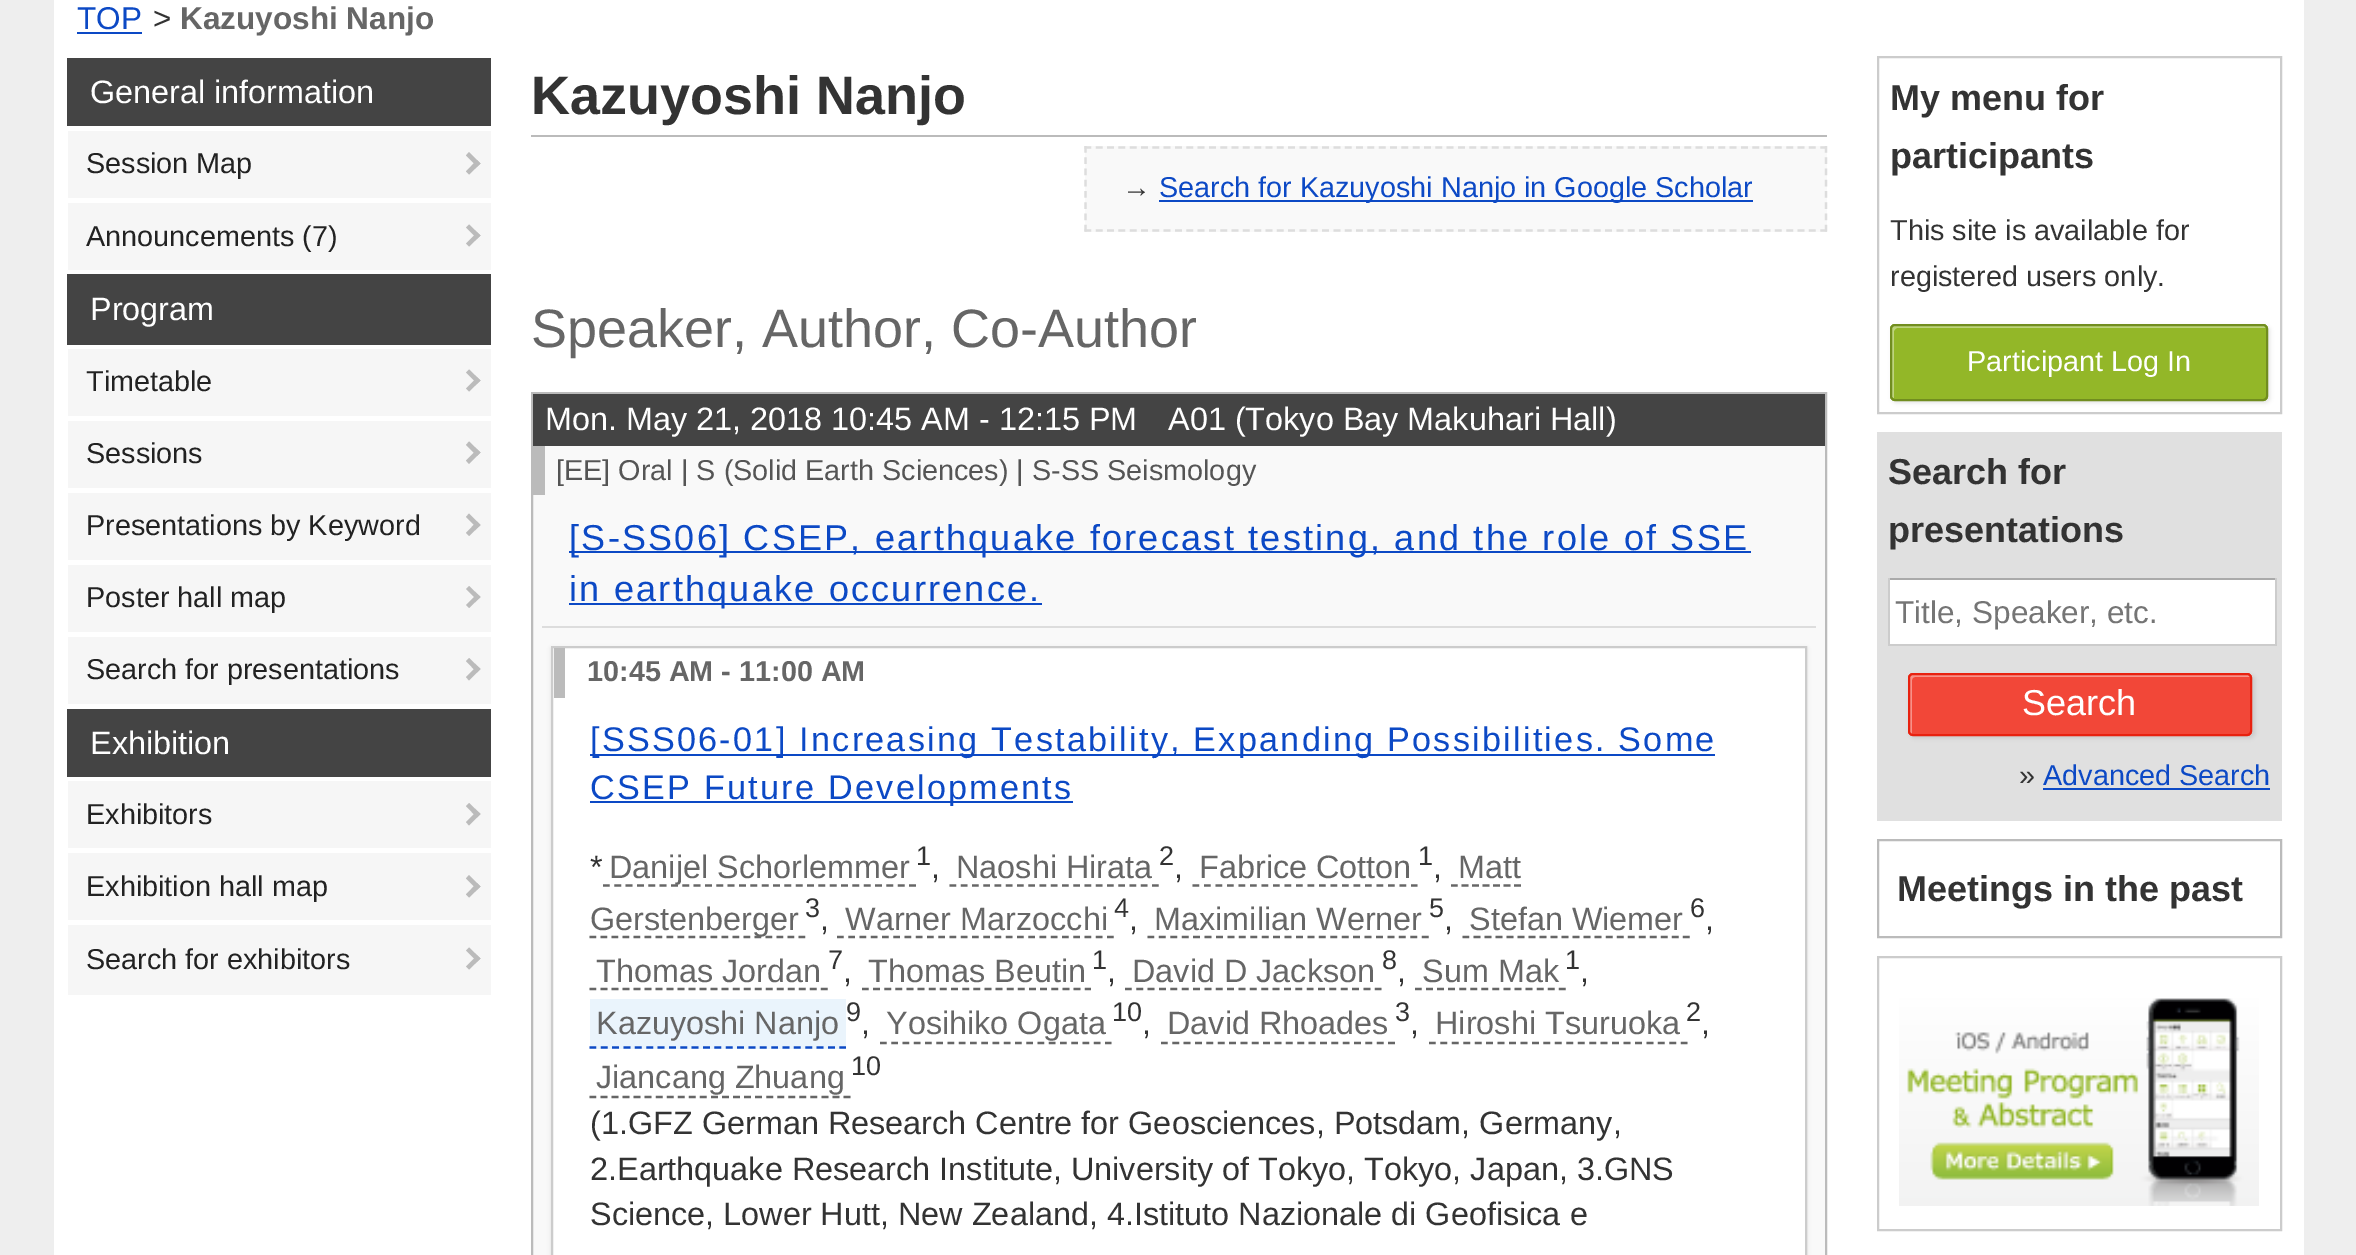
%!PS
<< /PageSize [2356 1255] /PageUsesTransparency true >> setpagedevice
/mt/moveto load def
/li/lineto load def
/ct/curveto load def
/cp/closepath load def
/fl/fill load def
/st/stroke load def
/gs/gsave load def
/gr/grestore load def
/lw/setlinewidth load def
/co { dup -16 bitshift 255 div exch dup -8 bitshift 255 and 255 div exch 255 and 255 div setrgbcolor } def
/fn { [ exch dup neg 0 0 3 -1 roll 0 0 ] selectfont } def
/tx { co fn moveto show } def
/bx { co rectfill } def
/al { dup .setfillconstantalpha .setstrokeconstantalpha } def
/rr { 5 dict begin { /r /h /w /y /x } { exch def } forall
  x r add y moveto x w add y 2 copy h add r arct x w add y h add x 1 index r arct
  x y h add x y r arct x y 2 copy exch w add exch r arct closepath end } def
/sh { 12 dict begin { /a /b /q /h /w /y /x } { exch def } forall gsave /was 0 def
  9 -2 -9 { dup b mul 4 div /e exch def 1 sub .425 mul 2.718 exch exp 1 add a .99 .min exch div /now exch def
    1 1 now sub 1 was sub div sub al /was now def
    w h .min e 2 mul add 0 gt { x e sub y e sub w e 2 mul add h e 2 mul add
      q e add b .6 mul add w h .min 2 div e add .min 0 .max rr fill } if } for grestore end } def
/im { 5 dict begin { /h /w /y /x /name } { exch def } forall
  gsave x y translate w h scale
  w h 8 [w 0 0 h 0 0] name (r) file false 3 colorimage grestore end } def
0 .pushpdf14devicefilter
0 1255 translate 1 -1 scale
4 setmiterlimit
0 0 2356 1255 16#EEEEEE bx
54 0 2250 1255 16#FFFFFF bx
77 32 65 2 16#0C49C5 bx
67 58 424 68 16#444444 bx
68 131 423 67 16#F6F6F6 bx
16#BBBBBB co
469 152 mt 480.5 163.5 li 477 166.5 li 466 155.5 li cp fl
477 160 mt 480.5 163.5 li 469 174.5 li 466 171.5 li cp fl
68 203 423 67 16#F6F6F6 bx
16#BBBBBB co
469 224.5 mt 480.5 235.5 li 477 238.5 li 466 227.5 li cp fl
477 232.5 mt 480.5 235.5 li 469 246.5 li 466 243.5 li cp fl
67 274 424 71 16#444444 bx
68 349 423 67 16#F6F6F6 bx
16#BBBBBB co
469 369.5 mt 480.5 380.5 li 477 383.5 li 466 372.5 li cp fl
477 377.5 mt 480.5 380.5 li 469 391.5 li 466 388.5 li cp fl
68 421 423 67 16#F6F6F6 bx
16#BBBBBB co
469 441.5 mt 480.5 452.5 li 477 456 li 466 445 li cp fl
477 449.5 mt 480.5 452.5 li 469 464 li 466 460.5 li cp fl
68 493 423 67 16#F6F6F6 bx
16#BBBBBB co
469 513.5 mt 480.5 525 li 477 528 li 466 517 li cp fl
477 521.5 mt 480.5 525 li 469 536 li 466 533 li cp fl
68 565 423 67 16#F6F6F6 bx
16#BBBBBB co
469 586 mt 480.5 597 li 477 600 li 466 589 li cp fl
477 594 mt 480.5 597 li 469 608 li 466 605 li cp fl
68 637 423 67 16#F6F6F6 bx
16#BBBBBB co
469 658 mt 480.5 669 li 477 672.5 li 466 661 li cp fl
477 666 mt 480.5 669 li 469 680.5 li 466 677 li cp fl
67 709 424 68 16#444444 bx
68 781 423 67 16#F6F6F6 bx
16#BBBBBB co
469 803 mt 480.5 814 li 477 817.5 li 466 806 li cp fl
477 811 mt 480.5 814 li 469 825.5 li 466 822 li cp fl
68 853 423 67 16#F6F6F6 bx
16#BBBBBB co
469 875 mt 480.5 886.5 li 477 889.5 li 466 878.5 li cp fl
477 883 mt 480.5 886.5 li 469 897.5 li 466 894.5 li cp fl
68 925 423 70 16#F6F6F6 bx
16#BBBBBB co
469 947.5 mt 480.5 958.5 li 477 961.5 li 466 950.5 li cp fl
477 955.5 mt 480.5 958.5 li 469 969.5 li 466 966.5 li cp fl
531 135 1296 2 16#BBBBBB bx
1085 146 742 86 16#F9F9F9 bx
16#DDDDDD co
2.2 lw
[6.75 4.57] 0 setdash
1084.5 147.5 mt 1827 147.5 li st
[6.75 4.5] 0 setdash
1826 146 mt 1826 232 li st
[6.75 4.57] 0 setdash
1084.5 230.5 mt 1827 230.5 li st
[6.75 4.5] 0 setdash
1085.5 146 mt 1085.5 232 li st
1159 200 594 2 16#0C49C5 bx
533 446 1292 809 16#F9F9F9 bx
16#BBBBBB co
2 lw
[] 0 setdash
532 393 1294 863 rectstroke
533 394 1292 52 16#444444 bx
533 446 12 49 16#BBBBBB bx
542 626 1274 2 16#DDDDDD bx
569 551 1182 2 16#0C49C5 bx
569 603 473 2 16#0C49C5 bx
16#000000 co
551 648 1256 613 0 2 .1 sh
16#FFFFFF co
552 647 mt 1806 647 li 1806 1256 li 552 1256 li cp gs fl gr
16#CCCCCC co
st
554 648 11 50 16#BBBBBB bx
590 754 1125 2 16#0C49C5 bx
590 801 483 2 16#0C49C5 bx
16#666666 co
2.2 lw
[6.75 4.59] 0 setdash
603 885.5 mt 916 885.5 li st
[6.75 4.5] 0 setdash
949.5 885.5 mt 1159 885.5 li st
[6.75 4.75] 0 setdash
1192.5 885.5 mt 1417.5 885.5 li st
[6.75 3.76] 0 setdash
1451 885.5 mt 1521 885.5 li st
[6.75 4.25] 0 setdash
589.5 937 mt 805.5 937 li st
[6.75 4.5] 0 setdash
837 937 mt 1114 937 li st
[6.75 4.68] 0 setdash
1147.5 937 mt 1429 937 li st
[6.75 4.27] 0 setdash
1462.5 937 mt 1690 937 li st
589.5 989 mt 828 989 li st
[6.75 4.39] 0 setdash
862 989 mt 1091 989 li st
[6.75 4.61] 0 setdash
1125 989 mt 1381.5 989 li st
[6.75 4.32] 0 setdash
1415 989 mt 1566 989 li st
590 999 256 50 16#EAF4FC bx
16#0C49C5 co
[6.75 4.61] 0 setdash
589.5 1047.5 mt 846 1047.5 li st
16#666666 co
[6.75 4.5] 0 setdash
880 1043 mt 1111.5 1043 li st
[6.75 4.61] 0 setdash
1161 1043 mt 1395 1043 li st
[6.75 4.7] 0 setdash
1429 1043 mt 1687.5 1043 li st
[6.75 4.3] 0 setdash
589.5 1097 mt 850.5 1097 li st
16#CCCCCC co
2 lw
[] 0 setdash
1878 57 403 356 rectstroke
16#000000 co
1892 326 378 77 5 2 .1 sh
16#93B728 co
1890 324 378 77 5 rr fl
16#BED47E co
1897 328 mt 2266 328 li 2266 327 2265 326 2264 326 ct 1894 326 li 1893 326 1892 327 1892 328 ct 1892 396 li 1892 397 1893 398 1894 398 ct 1894 331 li 1894 330 1896 328 1897 328 ct cp fl
16#718D1F co
1891 325 376 75 4 rr st
1877 432 405 389 16#E0E0E0 bx
1890 580 385 64 16#FFFFFF bx
1888 578 389 2 16#AAAAAA bx
2275 578 2 68 16#CCCCCC bx
1888 644 389 2 16#CCCCCC bx
1888 578 2 68 16#CCCCCC bx
16#000000 co
1910 675 345 63 5 2 .1 sh
16#F24738 co
1908 673 344 63 5 rr fl
16#F79188 co
1915 677 mt 2250 677 li 2250 676 2249 675 2248 675 ct 1912 675 li 1911 675 1910 676 1910 677 ct 1910 732 li 1910 733 1911 734 1912 734 ct 1912 680 li 1912 678 1914 677 1915 677 ct cp fl
16#E8210F co
1909 674 342 61 4 rr st
2043 788 227 2 16#0C49C5 bx
16#BBBBBB co
1878 840 403 97 rectstroke
16#CCCCCC co
1878 957 403 273 rectstroke
(media/1.raw) 1899 998 360 208 im
(TOP) 77 29 /LiberationSans-Regular 31.5 16#0C49C5 tx
(>) 153 29 /LiberationSans-Regular 31.5 16#333333 tx
(Kazuyoshi Nanjo) 180 29 /LiberationSans-Bold 31.5 16#666666 tx
(General information) 90 103 /LiberationSans-Regular 32.4 16#FFFFFF tx
(Session Map) 86 173 /LiberationSans-Regular 28.8 16#222222 tx
(Announcements \(7\)) 86 246 /LiberationSans-Regular 28.8 16#222222 tx
(Program) 90 320 /LiberationSans-Regular 32.4 16#FFFFFF tx
(Timetable) 86 391 /LiberationSans-Regular 28.8 16#222222 tx
(Sessions) 86 463 /LiberationSans-Regular 28.8 16#222222 tx
(Presentations by Keyword) 86 535 /LiberationSans-Regular 28.8 16#222222 tx
(Poster hall map) 86 607 /LiberationSans-Regular 28.8 16#222222 tx
(Search for presentations) 86 679 /LiberationSans-Regular 28.8 16#222222 tx
(Exhibition) 90 754 /LiberationSans-Regular 32.4 16#FFFFFF tx
(Exhibitors) 86 824 /LiberationSans-Regular 28.8 16#222222 tx
(Exhibition hall map) 86 896 /LiberationSans-Regular 28.8 16#222222 tx
(Search for exhibitors) 86 969 /LiberationSans-Regular 28.8 16#222222 tx
(Kazuyoshi Nanjo) 531 114 /LiberationSans-Bold 54 16#333333 tx
(→) 1122 197 /LiberationSans-Regular 28.8 16#333333 tx
(Search for Kazuyoshi Nanjo in Google Scholar) 1159 197 /LiberationSans-Regular 28.8 16#0C49C5 tx
(Speaker, Author, Co-Author) 531 347 /LiberationSans-Regular 54 16#666666 tx
(Mon. May 21, 2018 10:45 AM - 12:15 PM) 545 430 /LiberationSans-Regular 32.4 16#FFFFFF tx
(A01 \(Tokyo Bay Makuhari Hall\)) 1168 430 /LiberationSans-Regular 32.4 16#FFFFFF tx
([EE] Oral | S \(Solid Earth Sciences\) | S-SS Seismology) 556 480 /LiberationSans-Regular 28.8 16#555555 tx
/LiberationSans-Regular 36 fn
16#0C49C5 co
569 550 mt 2.25 0 ([S-SS06] CSEP, earthquake forecast testing, and the role of SSE) ashow
569 601 mt 2.25 0 (in earthquake occurrence.) ashow
(10:45 AM - 11:00 AM) 587 681 /LiberationSans-Bold 28.8 16#666666 tx
/LiberationSans-Regular 34.2 fn
16#0C49C5 co
590 751 mt 2.25 0 ([SSS06-01] Increasing Testability, Expanding Possibilities. Some) ashow
590 799 mt 2.25 0 (CSEP Future Developments) ashow
(*) 590 878 /LiberationSans-Regular 32.4 16#333333 tx
(Danijel Schorlemmer) 609 878 /LiberationSans-Regular 32.4 16#666666 tx
(1) 916 865 /LiberationSans-Regular 27 16#333333 tx
(,) 931 878 /LiberationSans-Regular 32.4 16#333333 tx
(Naoshi Hirata) 956 878 /LiberationSans-Regular 32.4 16#666666 tx
(2) 1159 865 /LiberationSans-Regular 27 16#333333 tx
(,) 1174 878 /LiberationSans-Regular 32.4 16#333333 tx
(Fabrice Cotton) 1199 878 /LiberationSans-Regular 32.4 16#666666 tx
(1) 1418 865 /LiberationSans-Regular 27 16#333333 tx
(,) 1433 878 /LiberationSans-Regular 32.4 16#333333 tx
(Matt) 1458 878 /LiberationSans-Regular 32.4 16#666666 tx
(Gerstenberger) 590 930 /LiberationSans-Regular 32.4 16#666666 tx
(3) 805 917 /LiberationSans-Regular 27 16#333333 tx
(,) 820 930 /LiberationSans-Regular 32.4 16#333333 tx
(Warner Marzocchi) 845 930 /LiberationSans-Regular 32.4 16#666666 tx
(4) 1114 917 /LiberationSans-Regular 27 16#333333 tx
(,) 1129 930 /LiberationSans-Regular 32.4 16#333333 tx
(Maximilian Werner) 1154 930 /LiberationSans-Regular 32.4 16#666666 tx
(5) 1429 917 /LiberationSans-Regular 27 16#333333 tx
(,) 1444 930 /LiberationSans-Regular 32.4 16#333333 tx
(Stefan Wiemer) 1469 930 /LiberationSans-Regular 32.4 16#666666 tx
(6) 1690 917 /LiberationSans-Regular 27 16#333333 tx
(,) 1705 930 /LiberationSans-Regular 32.4 16#333333 tx
(Thomas Jordan) 596 982 /LiberationSans-Regular 32.4 16#666666 tx
(7) 828 969 /LiberationSans-Regular 27 16#333333 tx
(,) 843 982 /LiberationSans-Regular 32.4 16#333333 tx
(Thomas Beutin) 868 982 /LiberationSans-Regular 32.4 16#666666 tx
(1) 1092 969 /LiberationSans-Regular 27 16#333333 tx
(,) 1107 982 /LiberationSans-Regular 32.4 16#333333 tx
(David D Jackson) 1132 982 /LiberationSans-Regular 32.4 16#666666 tx
(8) 1382 969 /LiberationSans-Regular 27 16#333333 tx
(,) 1397 982 /LiberationSans-Regular 32.4 16#333333 tx
(Sum Mak) 1422 982 /LiberationSans-Regular 32.4 16#666666 tx
(1) 1565 969 /LiberationSans-Regular 27 16#333333 tx
(,) 1580 982 /LiberationSans-Regular 32.4 16#333333 tx
(Kazuyoshi Nanjo) 596 1034 /LiberationSans-Regular 32.4 16#666666 tx
(9) 846 1021 /LiberationSans-Regular 27 16#333333 tx
(,) 861 1034 /LiberationSans-Regular 32.4 16#333333 tx
(Yosihiko Ogata) 886 1034 /LiberationSans-Regular 32.4 16#666666 tx
(10) 1112 1021 /LiberationSans-Regular 27 16#333333 tx
(,) 1142 1034 /LiberationSans-Regular 32.4 16#333333 tx
(David Rhoades) 1167 1034 /LiberationSans-Regular 32.4 16#666666 tx
(3) 1395 1021 /LiberationSans-Regular 27 16#333333 tx
(,) 1410 1034 /LiberationSans-Regular 32.4 16#333333 tx
(Hiroshi Tsuruoka) 1435 1034 /LiberationSans-Regular 32.4 16#666666 tx
(2) 1686 1021 /LiberationSans-Regular 27 16#333333 tx
(,) 1701 1034 /LiberationSans-Regular 32.4 16#333333 tx
(Jiancang Zhuang) 596 1088 /LiberationSans-Regular 32.4 16#666666 tx
(10) 851 1075 /LiberationSans-Regular 27 16#333333 tx
(\(1.GFZ German Research Centre for Geosciences, Potsdam, Germany,) 590 1134 /LiberationSans-Regular 32.4 16#333333 tx
(2.Earthquake Research Institute, University of Tokyo, Tokyo, Japan, 3.GNS) 590 1180 /LiberationSans-Regular 32.4 16#333333 tx
(Science, Lower Hutt, New Zealand, 4.Istituto Nazionale di Geofisica e) 590 1225 /LiberationSans-Regular 32.4 16#333333 tx
(My menu for) 1890 110 /LiberationSans-Bold 36 16#333333 tx
(participants) 1890 168 /LiberationSans-Bold 36 16#333333 tx
(This site is available for) 1890 240 /LiberationSans-Regular 28.8 16#333333 tx
(registered users only.) 1890 286 /LiberationSans-Regular 28.8 16#333333 tx
(Participant Log In) 1967 371 /LiberationSans-Regular 28.8 16#FFFFFF tx
(Search for) 1888 484 /LiberationSans-Bold 36 16#333333 tx
(presentations) 1888 542 /LiberationSans-Bold 36 16#333333 tx
(Title, Speaker, etc.) 1895 623 /LiberationSans-Regular 31.5 16#757575 tx
(Search) 2022 715 /LiberationSans-Regular 36 16#FFFFFF tx
(») 2019 785 /LiberationSans-Regular 28.8 16#333333 tx
(Advanced Search) 2043 785 /LiberationSans-Regular 28.8 16#0C49C5 tx
(Meetings in the past) 1897 901 /LiberationSans-Bold 36 16#333333 tx
.poppdf14devicefilter showpage
